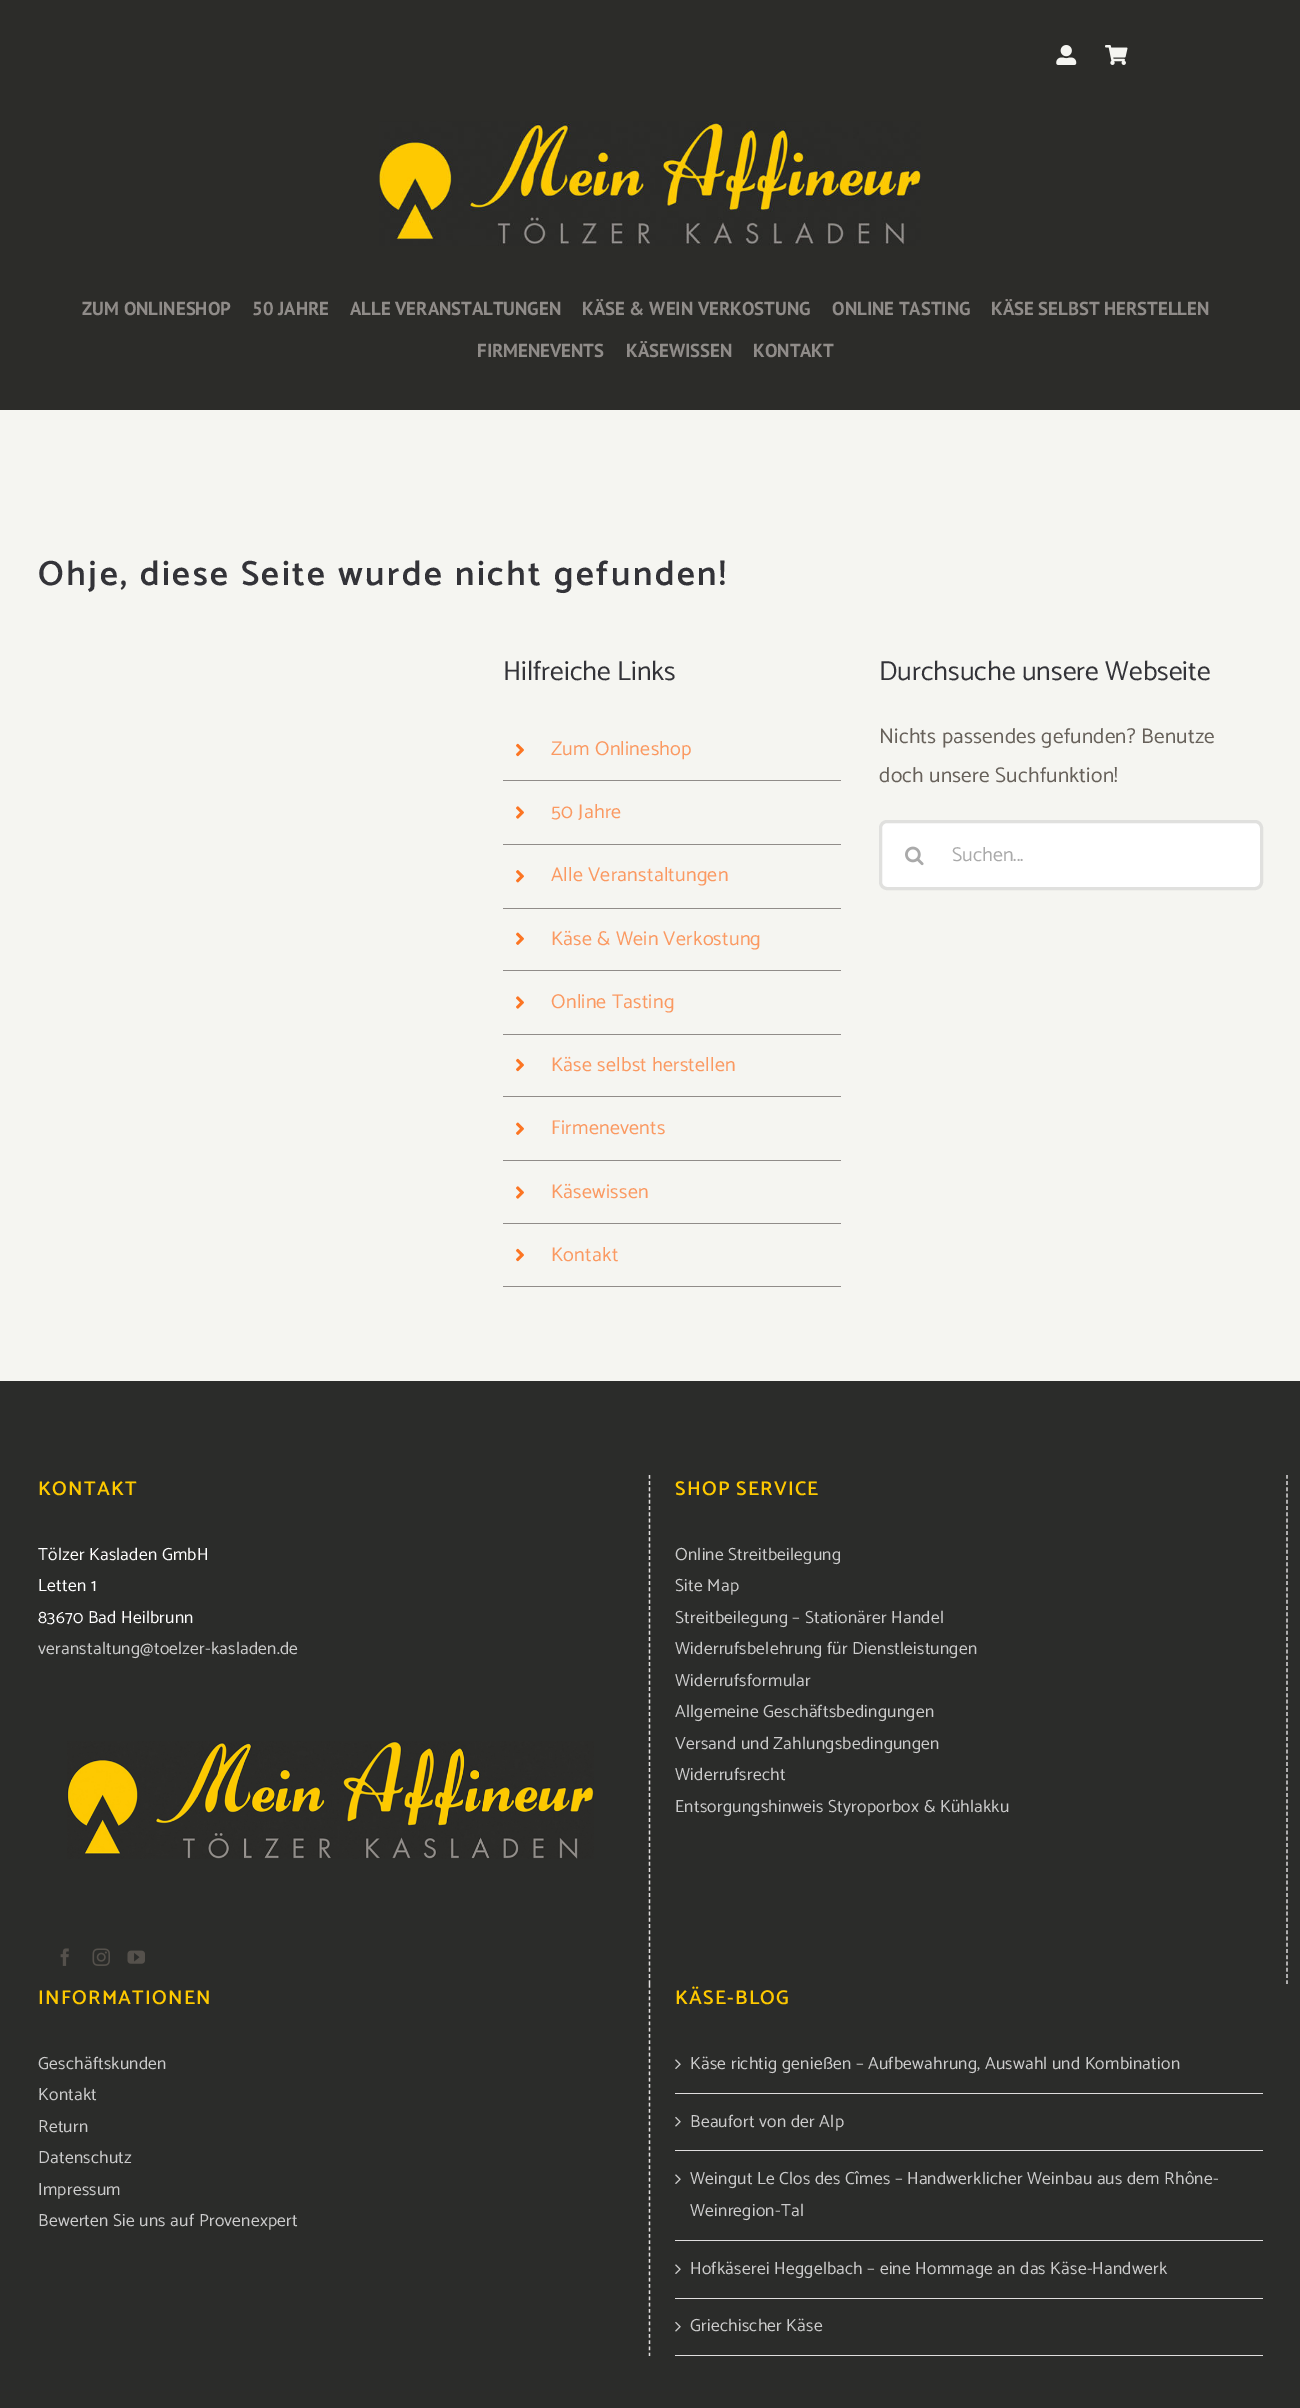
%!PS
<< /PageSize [1300 2408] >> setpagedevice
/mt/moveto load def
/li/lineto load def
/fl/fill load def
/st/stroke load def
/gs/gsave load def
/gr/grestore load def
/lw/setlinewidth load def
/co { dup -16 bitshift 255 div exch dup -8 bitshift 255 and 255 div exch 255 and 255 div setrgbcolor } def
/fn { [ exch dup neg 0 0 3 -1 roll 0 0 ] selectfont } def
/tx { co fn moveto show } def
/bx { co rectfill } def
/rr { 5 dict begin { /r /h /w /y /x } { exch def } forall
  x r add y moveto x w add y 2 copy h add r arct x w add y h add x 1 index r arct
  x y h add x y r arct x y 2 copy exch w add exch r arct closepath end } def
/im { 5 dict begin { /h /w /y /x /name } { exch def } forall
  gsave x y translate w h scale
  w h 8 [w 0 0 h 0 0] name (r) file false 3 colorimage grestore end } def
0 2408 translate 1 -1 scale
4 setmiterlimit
0 0 1300 2408 16#F5F5F1 bx
0 0 1300 410 16#2C2C29 bx
(media/1.raw) 1056 45 21 20 im
(media/2.raw) 1105 45 23 20 im
(media/3.raw) 379 121 542 125 im
503 780 338 1 16#908C89 bx
(media/4.raw) 516 743 8 14 im
503 844 338 1 16#908C89 bx
(media/5.raw) 516 806 8 13 im
503 908 338 1 16#908C89 bx
(media/6.raw) 516 870 8 13 im
503 970 338 1 16#908C89 bx
(media/7.raw) 516 932 8 13 im
503 1034 338 1 16#908C89 bx
(media/5.raw) 516 996 8 13 im
503 1096 338 1 16#908C89 bx
(media/4.raw) 516 1058 8 14 im
503 1160 338 1 16#908C89 bx
(media/7.raw) 516 1122 8 13 im
503 1223 338 1 16#908C89 bx
(media/5.raw) 516 1186 8 13 im
503 1286 338 1 16#908C89 bx
(media/4.raw) 516 1248 8 14 im
16#FFFFFF co
880.5 821.5 381 67 6.5 rr gs fl gr
16#E0E0DE co
3 lw
st
(media/8.raw) 905 846 19 20 im
0 1381 1300 1027 16#2B2C2A bx
16#E0DEDE co
1.2 lw
[3.75 2.49] 0 setdash
649.5 1475 mt 649.5 1984 li st
(media/9.raw) 67 1741 527 118 im
(media/10.raw) 60 1948 9 18 im
(media/11.raw) 92 1948 18 18 im
(media/12.raw) 127 1950 18 14 im
1287 1475 mt 1287 1984 li st
[3.75 2.5] 0 setdash
649.5 1984 mt 649.5 2356 li st
675 2093 588 1 16#E0DEDE bx
(media/13.raw) 675 2059 6 10 im
675 2150 588 1 16#E0DEDE bx
(media/14.raw) 675 2116 6 11 im
675 2240 588 1 16#E0DEDE bx
(media/13.raw) 675 2174 6 10 im
675 2298 588 1 16#E0DEDE bx
(media/13.raw) 675 2264 6 10 im
675 2355 588 1 16#E0DEDE bx
(media/14.raw) 675 2321 6 11 im
(ZUM ONLINESHOP) 82 315 /PTSans-Bold 18.75 16#908C89 tx
(50 JAHRE) 252 315 /PTSans-Bold 18.75 16#908C89 tx
(ALLE VERANSTALTUNGEN) 350 315 /PTSans-Bold 18.75 16#908C89 tx
(KÄSE & WEIN VERKOSTUNG) 582 315 /PTSans-Bold 18.75 16#908C89 tx
(ONLINE TASTING) 832 315 /PTSans-Bold 18.75 16#908C89 tx
(KÄSE SELBST HERSTELLEN) 991 315 /PTSans-Bold 18.75 16#908C89 tx
(FIRMENEVENTS) 477 357 /PTSans-Bold 18.75 16#908C89 tx
(KÄSEWISSEN) 626 357 /PTSans-Bold 18.75 16#908C89 tx
(KONTAKT) 753 357 /PTSans-Bold 18.75 16#908C89 tx
/Catamaran-SemiBold 35 fn
16#333338 co
38 585 mt 2.5 0 (Ohje, diese Seite wurde nicht gefunden!) ashow
(Hilfreiche Links) 503 680 /Catamaran-Regular 27.5 16#333338 tx
/Catamaran-Regular 20 fn
16#FB9961 co
551 755 mt .25 0 (Zum Onlineshop) ashow
551 818 mt .25 0 (50 Jahre) ashow
551 881 mt .25 0 (Alle Veranstaltungen) ashow
551 945 mt .25 0 (Käse & Wein Verkostung) ashow
551 1008 mt .25 0 (Online Tasting) ashow
551 1071 mt .25 0 (Käse selbst herstellen) ashow
551 1134 mt .25 0 (Firmenevents) ashow
551 1198 mt .25 0 (Käsewissen) ashow
551 1261 mt .25 0 (Kontakt) ashow
(Durchsuche unsere Webseite) 879 680 /Catamaran-Regular 27.5 16#333338 tx
/Catamaran-Regular 21.25 fn
16#67615A co
879 743 mt .25 0 (Nichts passendes gefunden? Benutze) ashow
879 782 mt .25 0 (doch unsere Suchfunktion!) ashow
(Suchen...) 952 861 /Catamaran-Regular 20 16#AAAAAA tx
/Catamaran-SemiBold 20 fn
16#FEC900 co
38 1495 mt 1.25 0 (KONTAKT) ashow
/Catamaran-Regular 17.5 fn
16#FFFFFF co
38 1560 mt .25 0 (Tölzer Kasladen GmbH) ashow
38 1591 mt .25 0 (Letten 1) ashow
38 1623 mt .25 0 (83670 Bad Heilbrunn) ashow
16#CCCCCC co
38 1654 mt .25 0 (veranstaltung@toelzer-kasladen.de) ashow
/Catamaran-SemiBold 20 fn
16#FEC900 co
675 1495 mt 1.25 0 (SHOP SERVICE) ashow
/Catamaran-Regular 17.5 fn
16#CCCCCC co
675 1560 mt .25 0 (Online Streitbeilegung) ashow
675 1591 mt .25 0 (Site Map) ashow
675 1623 mt .25 0 (Streitbeilegung – Stationärer Handel) ashow
675 1654 mt .25 0 (Widerrufsbelehrung für Dienstleistungen) ashow
675 1686 mt .25 0 (Widerrufsformular) ashow
675 1717 mt .25 0 (Allgemeine Geschäftsbedingungen) ashow
675 1749 mt .25 0 (Versand und Zahlungsbedingungen) ashow
675 1780 mt .25 0 (Widerrufsrecht) ashow
675 1812 mt .25 0 (Entsorgungshinweis Styroporbox & Kühlakku) ashow
/Catamaran-SemiBold 20 fn
16#FEC900 co
38 2004 mt 1.25 0 (INFORMATIONEN) ashow
/Catamaran-Regular 17.5 fn
16#CCCCCC co
38 2069 mt .25 0 (Geschäftskunden) ashow
38 2100 mt .25 0 (Kontakt) ashow
38 2132 mt .25 0 (Return) ashow
38 2163 mt .25 0 (Datenschutz) ashow
38 2195 mt .25 0 (Impressum) ashow
38 2226 mt .25 0 (Bewerten Sie uns auf Provenexpert) ashow
/Catamaran-SemiBold 20 fn
16#FEC900 co
675 2004 mt 1.25 0 (KÄSE-BLOG) ashow
/Catamaran-Regular 17.5 fn
16#CCCCCC co
690 2069 mt .25 0 (Käse richtig genießen – Aufbewahrung, Auswahl und Kombination) ashow
690 2127 mt .25 0 (Beaufort von der Alp) ashow
690 2184 mt .25 0 (Weingut Le Clos des Cîmes – Handwerklicher Weinbau aus dem Rhône-) ashow
690 2216 mt .25 0 (Weinregion-Tal) ashow
690 2274 mt .25 0 (Hofkäserei Heggelbach – eine Hommage an das Käse-Handwerk) ashow
690 2331 mt .25 0 (Griechischer Käse) ashow
showpage
